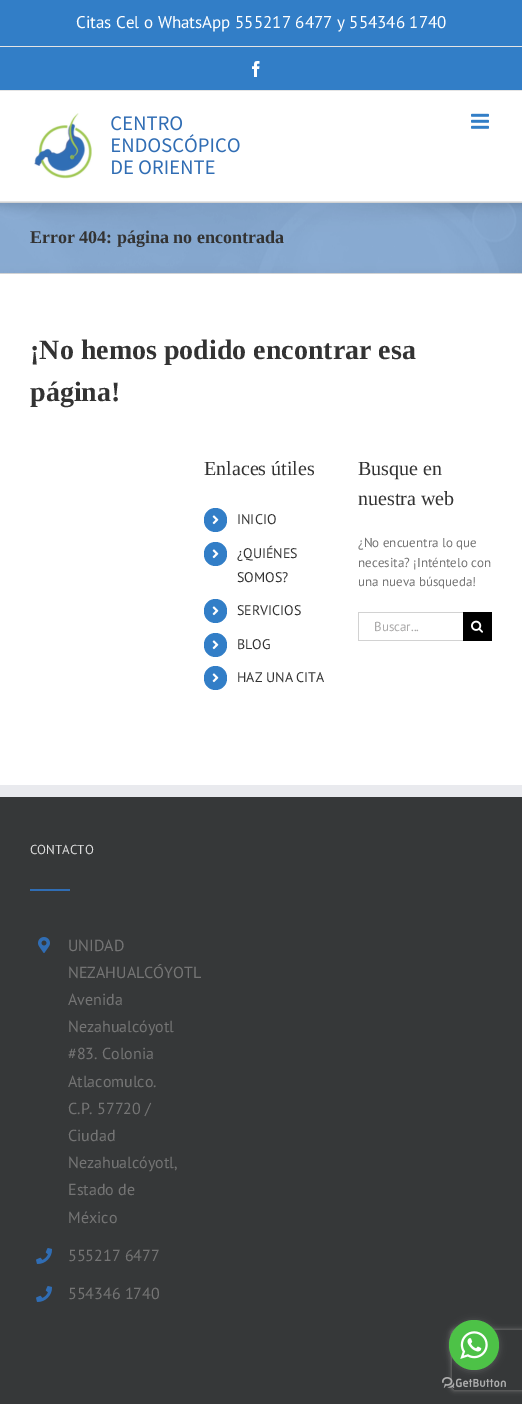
%!PS
<< /PageSize [522 1404] /PageUsesTransparency true >> setpagedevice
/mt/moveto load def
/li/lineto load def
/ct/curveto load def
/cp/closepath load def
/fl/fill load def
/gs/gsave load def
/gr/grestore load def
/co { dup -16 bitshift 255 div exch dup -8 bitshift 255 and 255 div exch 255 and 255 div setrgbcolor } def
/fn { [ exch dup neg 0 0 3 -1 roll 0 0 ] selectfont } def
/tx { co fn moveto show } def
/bx { co rectfill } def
/al { dup .setfillconstantalpha .setstrokeconstantalpha } def
/ci { newpath 0 360 arc closepath } def
/rr { 5 dict begin { /r /h /w /y /x } { exch def } forall
  x r add y moveto x w add y 2 copy h add r arct x w add y h add x 1 index r arct
  x y h add x y r arct x y 2 copy exch w add exch r arct closepath end } def
/sh { 12 dict begin { /a /b /q /h /w /y /x } { exch def } forall gsave /was 0 def
  9 -2 -9 { dup b mul 4 div /e exch def 1 sub .425 mul 2.718 exch exp 1 add a .99 .min exch div /now exch def
    1 1 now sub 1 was sub div sub al /was now def
    w h .min e 2 mul add 0 gt { x e sub y e sub w e 2 mul add h e 2 mul add
      q e add b .6 mul add w h .min 2 div e add .min 0 .max rr fill } if } for grestore end } def
/im { 5 dict begin { /h /w /y /x /name } { exch def } forall
  gsave x y translate w h scale
  w h 8 [w 0 0 h 0 0] name (r) file false 3 colorimage grestore end } def
0 .pushpdf14devicefilter
0 1404 translate 1 -1 scale
4 setmiterlimit
0 0 522 1404 16#FFFFFF bx
0 0 522 90 16#327EC7 bx
0 90 522 1 16#E5E5E5 bx
0 46 522 1 16#E5E5E5 bx
(media/1.raw) 252 61 8 16 im
0 201 522 1 16#E5E5E5 bx
(media/2.raw) 34 113 206 66 im
(media/3.raw) 471 113 18 16 im
0 203 522 70 16#306DB4 bx
(media/4.raw) 0 203 522 70 im
0 202 522 1 16#D2D3D4 bx
0 273 522 1 16#D2D3D4 bx
16#327EC7 co
204 508 23 24 11.5 rr fl
(media/5.raw) 212 515 7 10 im
204 542 23 24 11.5 rr fl
(media/5.raw) 212 549 7 10 im
204 599 23 24 11.5 rr fl
(media/5.raw) 212 606 7 10 im
204 633 23 24 11.5 rr fl
(media/5.raw) 212 640 7 10 im
204 666 23 24 11.5 rr fl
(media/5.raw) 212 673 7 10 im
358 612 105 1 16#D2D2D2 bx
358 640 105 1 16#D2D2D2 bx
358 612 1 29 16#D2D2D2 bx
463 612 29 29 16#000000 bx
(media/6.raw) 471 620 12 13 im
0 797 522 607 16#363839 bx
0 785 522 12 16#E9EAEE bx
30 889 40 2 16#306DB4 bx
(media/7.raw) 38 937 12 16 im
(media/8.raw) 36 1248 16 16 im
(media/8.raw) 36 1286 16 16 im
gs
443 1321 mt 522 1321 li 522 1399 li 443 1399 li cp 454 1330 mt 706 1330 li 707 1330 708 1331 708 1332 ct 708 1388 li 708 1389 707 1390 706 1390 ct 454 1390 li 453 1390 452 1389 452 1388 ct 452 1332 li 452 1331 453 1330 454 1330 ct cp eoclip newpath
16#808080 co
452 1330 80 60 2 2.5 1 sh
gr
(media/10.raw) 442 1377 64 11 im
16#888888 co
449 1321 50 50 25 3.5 .4 sh
16#4DC247 co
474 1345 25 ci fl
(media/9.raw) 460 1331 28 28 im
(Citas Cel o WhatsApp 555217 6477 y 554346 1740) 76 28 /PTSans-Regular 17 16#FFFFFF tx
(Error 404: página no encontrada) 30 243 /LiberationSerif-Bold 18 16#333333 tx
(¡No hemos podido encontrar esa) 30 359 /LiberationSerif-Bold 28 16#333333 tx
(página!) 30 401 /LiberationSerif-Bold 28 16#333333 tx
(Enlaces útiles) 204 475 /LiberationSerif-Regular 20 16#333333 tx
(INICIO) 237 524 /PTSans-Regular 14 16#333333 tx
(¿QUIÉNES) 237 558 /PTSans-Regular 14 16#333333 tx
(SOMOS?) 237 582 /PTSans-Regular 14 16#333333 tx
(SERVICIOS) 237 615 /PTSans-Regular 14 16#333333 tx
(BLOG) 237 649 /PTSans-Regular 14 16#333333 tx
(HAZ UNA CITA) 237 682 /PTSans-Regular 14 16#333333 tx
(Busque en) 358 475 /LiberationSerif-Regular 20 16#333333 tx
(nuestra web) 358 505 /LiberationSerif-Regular 20 16#333333 tx
(¿No encuentra lo que) 358 547 /PTSans-Regular 13 16#747474 tx
(necesita? ¡Inténtelo con) 358 567 /PTSans-Regular 13 16#747474 tx
(una nueva búsqueda!) 358 586 /PTSans-Regular 13 16#747474 tx
(Buscar...) 374 631 /PTSans-Regular 13 16#AAA9A9 tx
(CONTACTO) 30 854 /PTSans-Regular 13 16#DDDDDD tx
(UNIDAD) 68 951 /PTSans-Regular 16 16#747474 tx
(NEZAHUALCÓYOTL) 68 978 /PTSans-Regular 16 16#747474 tx
(Avenida) 68 1005 /PTSans-Regular 16 16#747474 tx
(Nezahualcóyotl) 68 1032 /PTSans-Regular 16 16#747474 tx
(#83. Colonia) 68 1059 /PTSans-Regular 16 16#747474 tx
(Atlacomulco.) 68 1087 /PTSans-Regular 16 16#747474 tx
(C.P. 57720 /) 68 1114 /PTSans-Regular 16 16#747474 tx
(Ciudad) 68 1141 /PTSans-Regular 16 16#747474 tx
(Nezahualcóyotl,) 68 1168 /PTSans-Regular 16 16#747474 tx
(Estado de) 68 1195 /PTSans-Regular 16 16#747474 tx
(México) 68 1223 /PTSans-Regular 16 16#747474 tx
(555217 6477) 68 1261 /PTSans-Regular 16 16#747474 tx
(554346 1740) 68 1299 /PTSans-Regular 16 16#747474 tx
.poppdf14devicefilter showpage
